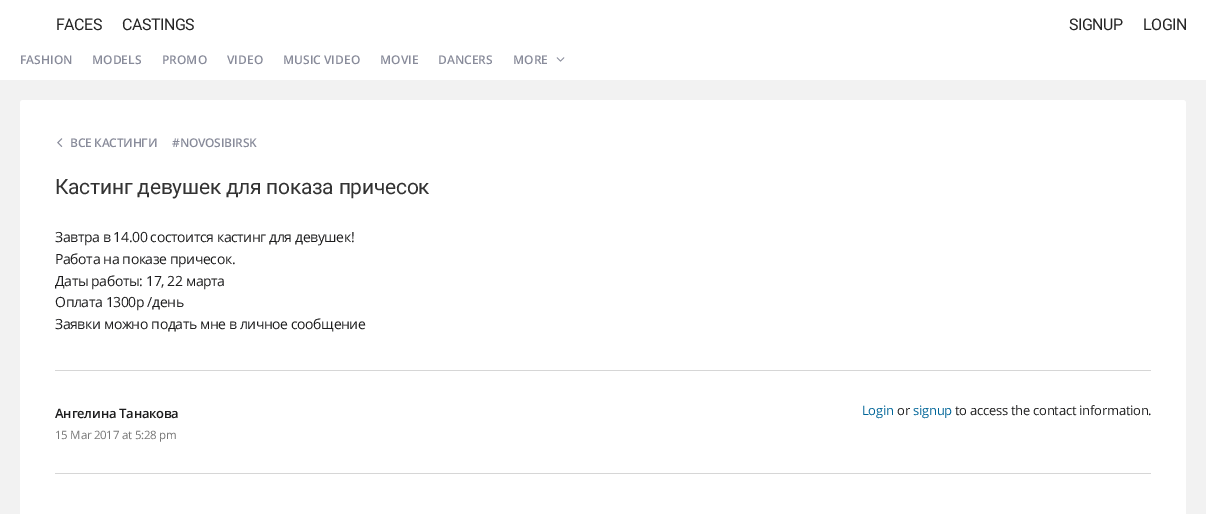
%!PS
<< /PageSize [1207 514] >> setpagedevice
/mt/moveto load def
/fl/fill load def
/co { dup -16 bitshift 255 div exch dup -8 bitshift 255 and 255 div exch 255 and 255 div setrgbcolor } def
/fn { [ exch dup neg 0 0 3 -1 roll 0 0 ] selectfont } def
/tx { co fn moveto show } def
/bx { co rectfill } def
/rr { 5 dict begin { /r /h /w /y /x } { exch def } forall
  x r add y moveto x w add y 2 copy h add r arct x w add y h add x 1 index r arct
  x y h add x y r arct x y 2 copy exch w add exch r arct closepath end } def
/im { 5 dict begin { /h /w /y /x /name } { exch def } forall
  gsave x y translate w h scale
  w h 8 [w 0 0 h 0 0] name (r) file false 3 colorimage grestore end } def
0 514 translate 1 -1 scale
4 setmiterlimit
0 0 1207 514 16#FFFFFF bx
(media/1.raw) 556 57 9 5 im
0 80 1206 434 16#F2F2F2 bx
16#FFFFFF co
20 100 1166 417 3 rr fl
(media/2.raw) 57 138 6 9 im
55 370 1096 1 16#D6D6D6 bx
55 473 1096 1 16#D6D6D6 bx
/Roboto-Regular 16 fn
16#262626 co
56 30 mt -.5 0 (FACES) ashow
122 30 mt -.5 0 (CASTINGS) ashow
1069 30 mt -.5 0 (SIGNUP) ashow
1143 30 mt -.5 0 (LOGIN) ashow
(FASHION) 20 64 /OpenSans-SemiBold 12 16#888B9A tx
(MODELS) 92 64 /OpenSans-SemiBold 12 16#888B9A tx
(PROMO) 162 64 /OpenSans-SemiBold 12 16#888B9A tx
(VIDEO) 227 64 /OpenSans-SemiBold 12 16#888B9A tx
(MUSIC VIDEO) 283 64 /OpenSans-SemiBold 12 16#888B9A tx
(MOVIE) 380 64 /OpenSans-SemiBold 12 16#888B9A tx
(DANCERS) 438 64 /OpenSans-SemiBold 12 16#888B9A tx
(MORE) 513 64 /OpenSans-SemiBold 12 16#888B9A tx
70 147 mt -.25 0 (ВСЕ КАСТИНГИ) ashow
172 147 mt -.25 0 (#NOVOSIBIRSK) ashow
/Roboto-Regular 21 fn
16#333333 co
55 194 mt -.25 0 (Кастинг девушек для показа причесок) ashow
/OpenSans-Regular 14 fn
16#1D1D1E co
55 242 mt -.4 0 (Завтра в 14.00 состоится кастинг для девушек!) ashow
55 264 mt -.4 0 (Работа на показе причесок.) ashow
55 286 mt -.4 0 (Даты работы: 17, 22 марта) ashow
55 307 mt -.4 0 (Оплата 1300р /день) ashow
55 329 mt -.4 0 (Заявки можно подать мне в личное сообщение) ashow
/OpenSans-SemiBold 13 fn
55 418 mt -.25 0 (Ангелина Танакова) ashow
/OpenSans-Regular 11.5 fn
16#777777 co
55 439 mt -.25 0 (15 Mar 2017 at 5:28 pm) ashow
/OpenSans-Regular 13 fn
16#006598 co
862 415 mt -.25 0 (Login) ashow
16#1D1D1E co
897 415 mt -.25 0 (or) ashow
16#006598 co
913 415 mt -.25 0 (signup) ashow
16#1D1D1E co
955 415 mt -.25 0 (to access the contact information.) ashow
showpage
